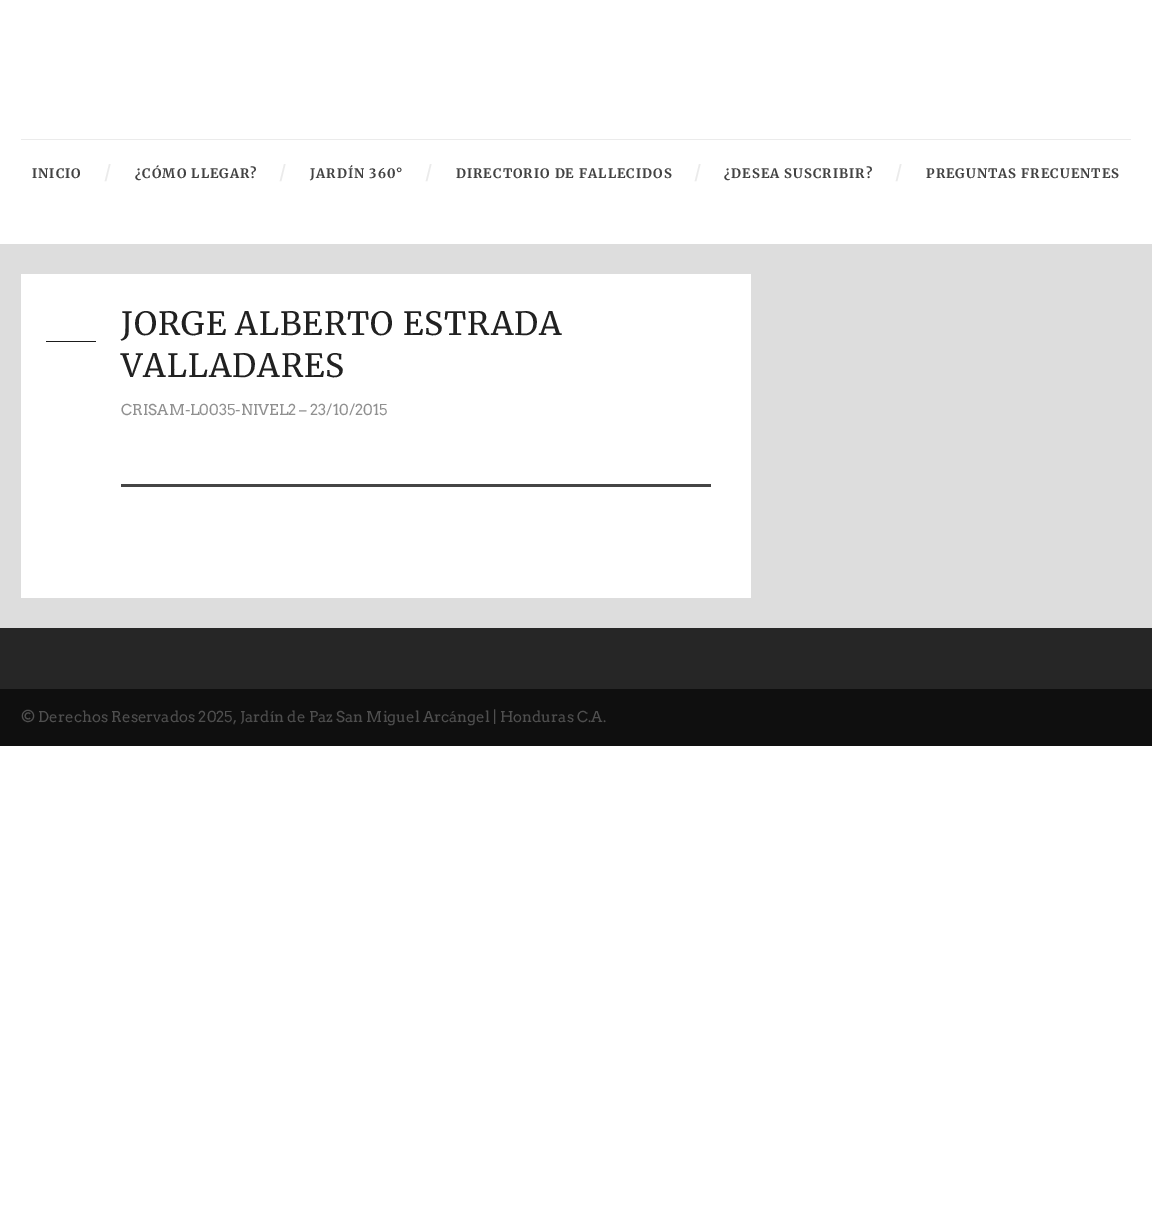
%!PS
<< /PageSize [1152 1221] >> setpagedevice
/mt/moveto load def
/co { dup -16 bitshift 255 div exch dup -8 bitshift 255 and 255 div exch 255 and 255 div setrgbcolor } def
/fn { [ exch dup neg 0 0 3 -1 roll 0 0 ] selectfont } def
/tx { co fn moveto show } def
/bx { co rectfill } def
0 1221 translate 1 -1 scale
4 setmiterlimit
0 0 1152 1221 16#FFFFFF bx
0 244 1152 384 16#DDDDDD bx
21 139 1110 1 16#EBEBEB bx
21 274 730 324 16#FFFFFF bx
46 341 50 1 16#1B1B1B bx
121 484 590 3 16#454545 bx
0 628 1152 61 16#262626 bx
0 689 1152 57 16#0F0F0F bx
/Merriweather-Bold 13 fn
16#424242 co
32 178 mt 1 0 (INICIO) ashow
/Merriweather-Bold 18 fn
16#EBEBEB co
104 178 mt 1 0 (/) ashow
/Merriweather-Bold 13 fn
16#424242 co
135 178 mt 1 0 (¿CÓMO LLEGAR?) ashow
/Merriweather-Bold 18 fn
16#EBEBEB co
279 178 mt 1 0 (/) ashow
/Merriweather-Bold 13 fn
16#424242 co
310 178 mt 1 0 (JARDÍN 360°) ashow
/Merriweather-Bold 18 fn
16#EBEBEB co
425 178 mt 1 0 (/) ashow
/Merriweather-Bold 13 fn
16#424242 co
456 178 mt 1 0 (DIRECTORIO DE FALLECIDOS) ashow
/Merriweather-Bold 18 fn
16#EBEBEB co
694 178 mt 1 0 (/) ashow
/Merriweather-Bold 13 fn
16#424242 co
724 178 mt 1 0 (¿DESEA SUSCRIBIR?) ashow
/Merriweather-Bold 18 fn
16#EBEBEB co
895 178 mt 1 0 (/) ashow
/Merriweather-Bold 13 fn
16#424242 co
926 178 mt 1 0 (PREGUNTAS FRECUENTES) ashow
/Merriweather-Regular 32 fn
16#212121 co
121 335 mt 1 0 (JORGE ALBERTO ESTRADA) ashow
121 377 mt 1 0 (VALLADARES) ashow
(CRISAM-L0035-NIVEL2 – 23/10/2015) 121 415 /Arvo-Regular 15 16#909090 tx
(© Derechos Reservados 2025, Jardín de Paz San Miguel Arcángel | Honduras C.A.) 21 722 /Arvo-Regular 15 16#4F4F4F tx
showpage
